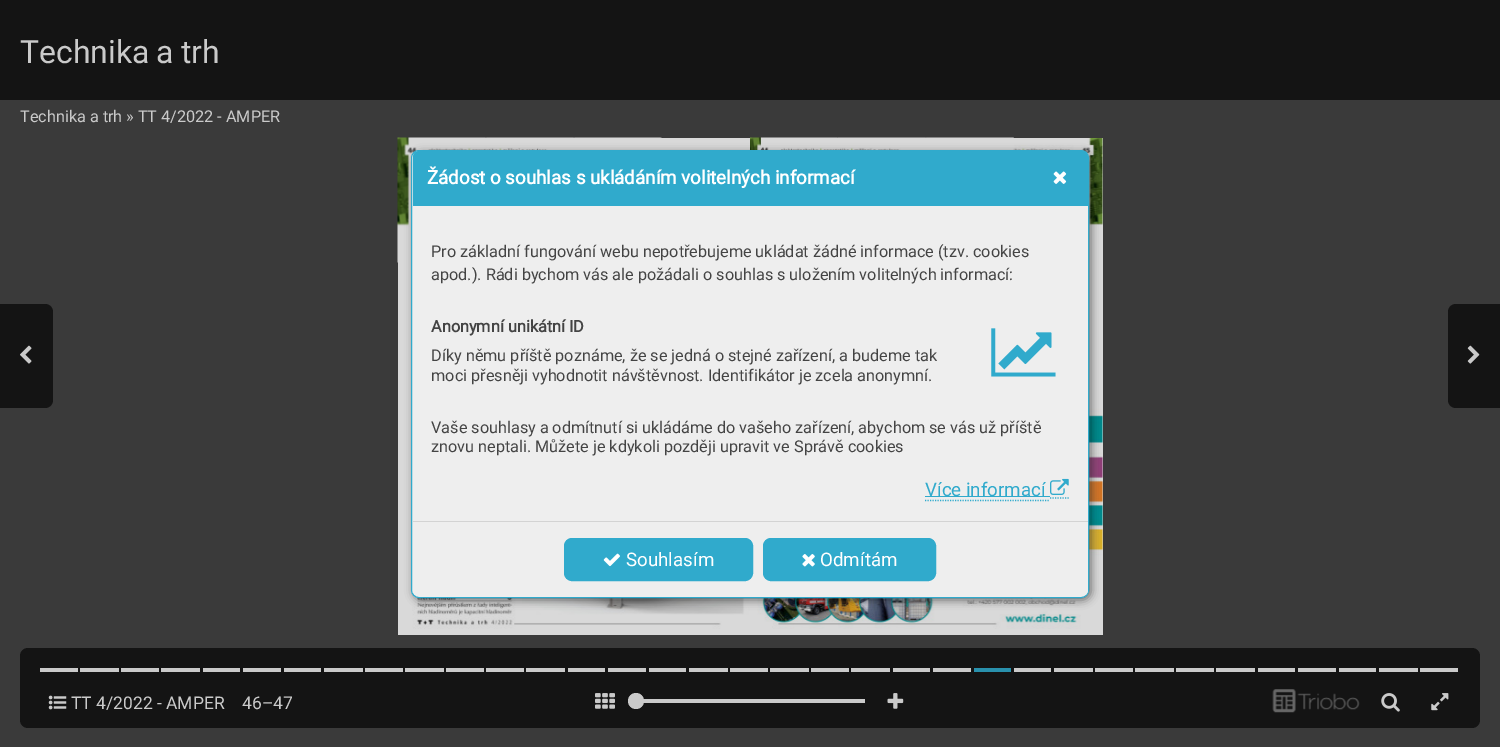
%!PS
<< /PageSize [1500 747] /PageUsesTransparency true >> setpagedevice
/mt/moveto load def
/li/lineto load def
/ct/curveto load def
/cp/closepath load def
/fl/fill load def
/st/stroke load def
/gs/gsave load def
/gr/grestore load def
/lw/setlinewidth load def
/co { dup -16 bitshift 255 div exch dup -8 bitshift 255 and 255 div exch 255 and 255 div setrgbcolor } def
/fn { [ exch dup neg 0 0 3 -1 roll 0 0 ] selectfont } def
/tx { co fn moveto show } def
/bx { co rectfill } def
/al { dup .setfillconstantalpha .setstrokeconstantalpha } def
/ci { newpath 0 360 arc closepath } def
/rr { 5 dict begin { /r /h /w /y /x } { exch def } forall
  x r add y moveto x w add y 2 copy h add r arct x w add y h add x 1 index r arct
  x y h add x y r arct x y 2 copy exch w add exch r arct closepath end } def
/sh { 12 dict begin { /a /b /q /h /w /y /x } { exch def } forall gsave /was 0 def
  9 -2 -9 { dup b mul 4 div /e exch def 1 sub .425 mul 2.718 exch exp 1 add a .99 .min exch div /now exch def
    1 1 now sub 1 was sub div sub al /was now def
    w h .min e 2 mul add 0 gt { x e sub y e sub w e 2 mul add h e 2 mul add
      q e add b .6 mul add w h .min 2 div e add .min 0 .max rr fill } if } for grestore end } def
/im { 5 dict begin { /h /w /y /x /name } { exch def } forall
  gsave x y translate w h scale
  w h 8 [w 0 0 h 0 0] name (r) file false 3 colorimage grestore end } def
0 .pushpdf14devicefilter
0 747 translate 1 -1 scale
4 setmiterlimit
0 0 1500 747 16#3A3A3A bx
0 0 1500 100 16#141414 bx
0 304 mt 45 304 li 49.5 304 53 307.5 53 312 ct 53 400 li 53 404.5 49.5 408 45 408 ct 0 408 li cp fl
(media/1.raw) 20 345 12 19 im
1456 304 mt 1500 304 li 1500 408 li 1456 408 li 1451.5 408 1448 404.5 1448 400 ct 1448 312 li 1448 307.5 1451.5 304 1456 304 ct cp fl
(media/2.raw) 1467 345 13 19 im
20 648 1460 80 8 rr fl
40 668 38 4 16#CACACA bx
80 668 39 4 16#CACACA bx
121 668 38 4 16#CACACA bx
161 668 39 4 16#CACACA bx
203 668 37 4 16#CACACA bx
243 668 38 4 16#CACACA bx
284 668 37 4 16#CACACA bx
324 668 39 4 16#CACACA bx
365 668 38 4 16#CACACA bx
405 668 39 4 16#CACACA bx
446 668 38 4 16#CACACA bx
486 668 38 4 16#CACACA bx
526 668 39 4 16#CACACA bx
568 668 37 4 16#CACACA bx
608 668 38 4 16#CACACA bx
649 668 37 4 16#CACACA bx
689 668 39 4 16#CACACA bx
730 668 38 4 16#CACACA bx
770 668 39 4 16#CACACA bx
811 668 38 4 16#CACACA bx
851 668 39 4 16#CACACA bx
893 668 37 4 16#CACACA bx
933 668 38 4 16#CACACA bx
1014 668 37 4 16#CACACA bx
1054 668 39 4 16#CACACA bx
1095 668 38 4 16#CACACA bx
1135 668 39 4 16#CACACA bx
1176 668 38 4 16#CACACA bx
1216 668 39 4 16#CACACA bx
1258 668 37 4 16#CACACA bx
1298 668 38 4 16#CACACA bx
1339 668 37 4 16#CACACA bx
1379 668 39 4 16#CACACA bx
1420 668 38 4 16#CACACA bx
974 668 37 4 16#2991AD bx
(media/3.raw) 48 695 19 15 im
(media/4.raw) 595 693 20 16 im
635 699 230 4 16#CACACA bx
636 701 8 ci fl
(media/5.raw) 887 693 17 16 im
(media/6.raw) 1272 689 88 24 im
(media/7.raw) 1381 693 19 19 im
(media/8.raw) 1431 693 18 18 im
398 138 705 497 16#D9D9D9 bx
(media/12.raw) 398 138 352 491 im
(media/9.raw) 397 137 90 126 im
(media/10.raw) 486 137 88 13 im
(media/11.raw) 573 137 89 13 im
(media/16.raw) 750 138 353 491 im
(media/13.raw) 750 137 88 13 im
(media/14.raw) 837 137 90 13 im
(media/15.raw) 926 137 88 13 im
16#000000 co
414 153 677 447 8 4.5 .53 sh
16#EEEEEE co
411.5 150.5 677 447 7.5 rr gs fl gr
16#30AACC co
st
419 151 mt 1082 151 li 1085.5 151 1088 153.5 1088 157 ct 1088 206 li 413 206 li 413 157 li 413 153.5 415.5 151 419 151 ct cp fl
(media/17.raw) 1053 171 14 13 im
(media/18.raw) 991 328 65 49 im
1.2 lw
[1.25 1.25] 0 setdash
925 500.5 mt 1050 500.5 li st
1050 498 mt 1069 498 li st
925 496 125 1 16#30AACC bx
(media/19.raw) 1050 478 19 17 im
16#EEEEEE co
413 521 mt 1088 521 li 1088 590 li 1088 593.5 1085.5 596 1082 596 ct 419 596 li 415.5 596 413 593.5 413 590 ct cp fl
413 521 675 1 16#D3D3D3 bx
16#30AACC co
564.5 538.5 188 42 7.5 rr gs fl gr
1 lw
[] 0 setdash
st
(media/20.raw) 603 553 17 14 im
763.5 538.5 172 42 7.5 rr gs fl gr
st
(media/21.raw) 802 554 13 13 im
/Roboto-Regular 32 fn
16#CACACA co
20 63 mt -1 0 32 (Technika a trh) widthshow
(Technika a trh) 20 122 /Roboto-Regular 16.25 16#CACACA tx
(» TT 4/2022 - AMPER) 126 122 /Roboto-Regular 16.25 16#CACACA tx
(TT 4/2022 - AMPER) 71 709 /Roboto-Regular 17.5 16#CACACA tx
(46–47) 242 709 /Roboto-Regular 17.5 16#CACACA tx
(Žádost o souhlas s ukládáním volitelných informací) 427 184 /Roboto-Bold 18.75 16#FFFFFF tx
(Pro základní fungování webu nepotřebujeme ukládat žádné informace \(tzv. cookies) 431 257 /Roboto-Regular 16.25 16#444444 tx
(apod.\). Rádi bychom vás ale požádali o souhlas s uložením volitelných informací:) 431 280 /Roboto-Regular 16.25 16#444444 tx
(Anonymní unikátní ID) 431 332 /Roboto-Bold 16.25 16#444444 tx
(Díky němu příště poznáme, že se jedná o stejné zařízení, a budeme tak) 431 361 /Roboto-Regular 16.25 16#444444 tx
(moci přesněji vyhodnotit návštěvnost. Identifikátor je zcela anonymní.) 431 381 /Roboto-Regular 16.25 16#444444 tx
(Vaše souhlasy a odmítnutí si ukládáme do vašeho zařízení, abychom se vás už příště) 431 433 /Roboto-Regular 16.25 16#444444 tx
(znovu neptali. Můžete je kdykoli později upravit ve Správě cookies) 431 452 /Roboto-Regular 16.25 16#444444 tx
(Více informací) 925 496 /Roboto-Regular 18.75 16#30AACC tx
(Souhlasím) 626 566 /Roboto-Regular 18.75 16#FFFFFF tx
(Odmítám) 820 566 /Roboto-Regular 18.75 16#FFFFFF tx
.poppdf14devicefilter showpage
